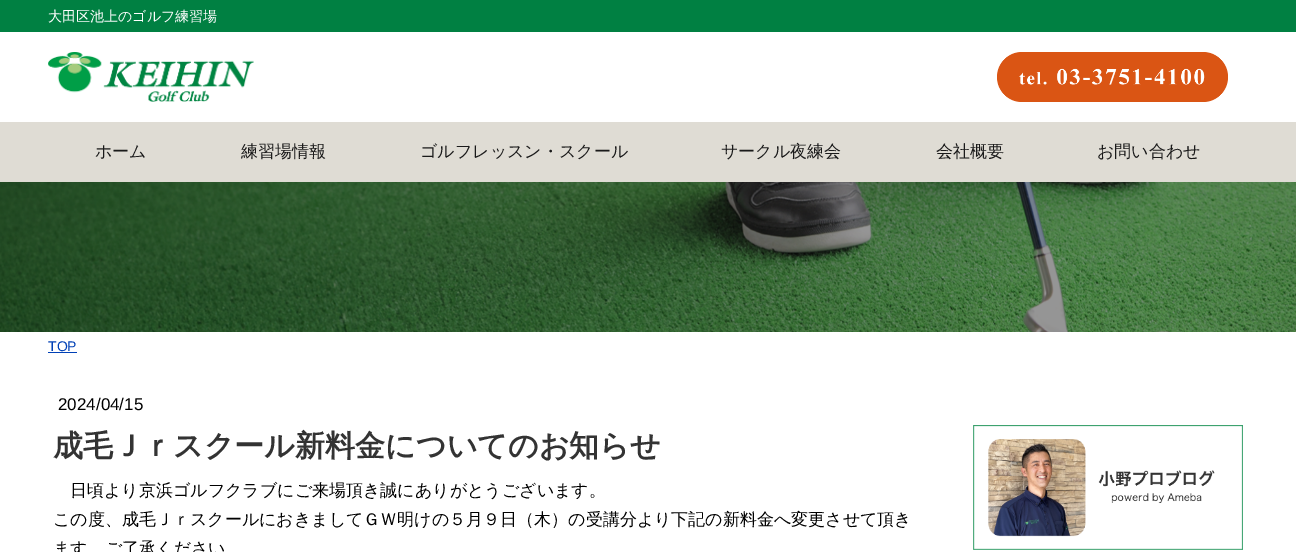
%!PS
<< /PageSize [1296 552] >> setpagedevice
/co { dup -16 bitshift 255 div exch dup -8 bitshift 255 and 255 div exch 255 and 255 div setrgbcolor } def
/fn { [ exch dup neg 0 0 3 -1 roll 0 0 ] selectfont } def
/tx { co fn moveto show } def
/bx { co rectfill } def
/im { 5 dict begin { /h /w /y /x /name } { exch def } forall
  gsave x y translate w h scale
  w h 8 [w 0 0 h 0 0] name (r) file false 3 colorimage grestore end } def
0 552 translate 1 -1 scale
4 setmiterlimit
0 0 1296 552 16#FFFFFF bx
(media/1.raw) 0 182 1296 150 im
0 0 1296 32 16#008042 bx
(media/2.raw) 48 52 206 50 im
(media/3.raw) 997 52 231 50 im
0 122 1296 60 16#DFDCD4 bx
48 352 29 1 16#0040B6 bx
(media/4.raw) 973 425 270 125 im
(大田区池上のゴルフ練習場) 48 21 /WenQuanYiZenHei-Medium 14 16#FFFFFF tx
(ホーム) 95 157 /WenQuanYiZenHei-Medium 17 16#1A1A1A tx
(練習場情報) 241 157 /WenQuanYiZenHei-Medium 17 16#1A1A1A tx
(ゴルフレッスン・スクール) 420 157 /WenQuanYiZenHei-Medium 17 16#1A1A1A tx
(サークル夜練会) 721 157 /WenQuanYiZenHei-Medium 17 16#1A1A1A tx
(会社概要) 936 157 /WenQuanYiZenHei-Medium 17 16#1A1A1A tx
(お問い合わせ) 1097 157 /WenQuanYiZenHei-Medium 17 16#1A1A1A tx
(TOP) 48 351 /LiberationSans-Regular 14 16#0040B6 tx
(2024/04/15) 58 410 /LiberationSans-Regular 17 16#000000 tx
(成毛Ｊｒスクール新料金についてのお知らせ) 53 456 /WenQuanYiZenHei-Bold 30 16#333333 tx
(日頃より京浜ゴルフクラブにご来場頂き誠にありがとうございます。) 70 496 /WenQuanYiZenHei-Medium 17 16#000000 tx
(この度、成毛ＪｒスクールにおきましてＧＷ明けの５月９日（木）の受講分より下記の新料金へ変更させて頂き) 53 525 /WenQuanYiZenHei-Medium 17 16#000000 tx
(ます。ご了承ください) 53 554 /WenQuanYiZenHei-Medium 17 16#000000 tx
showpage
